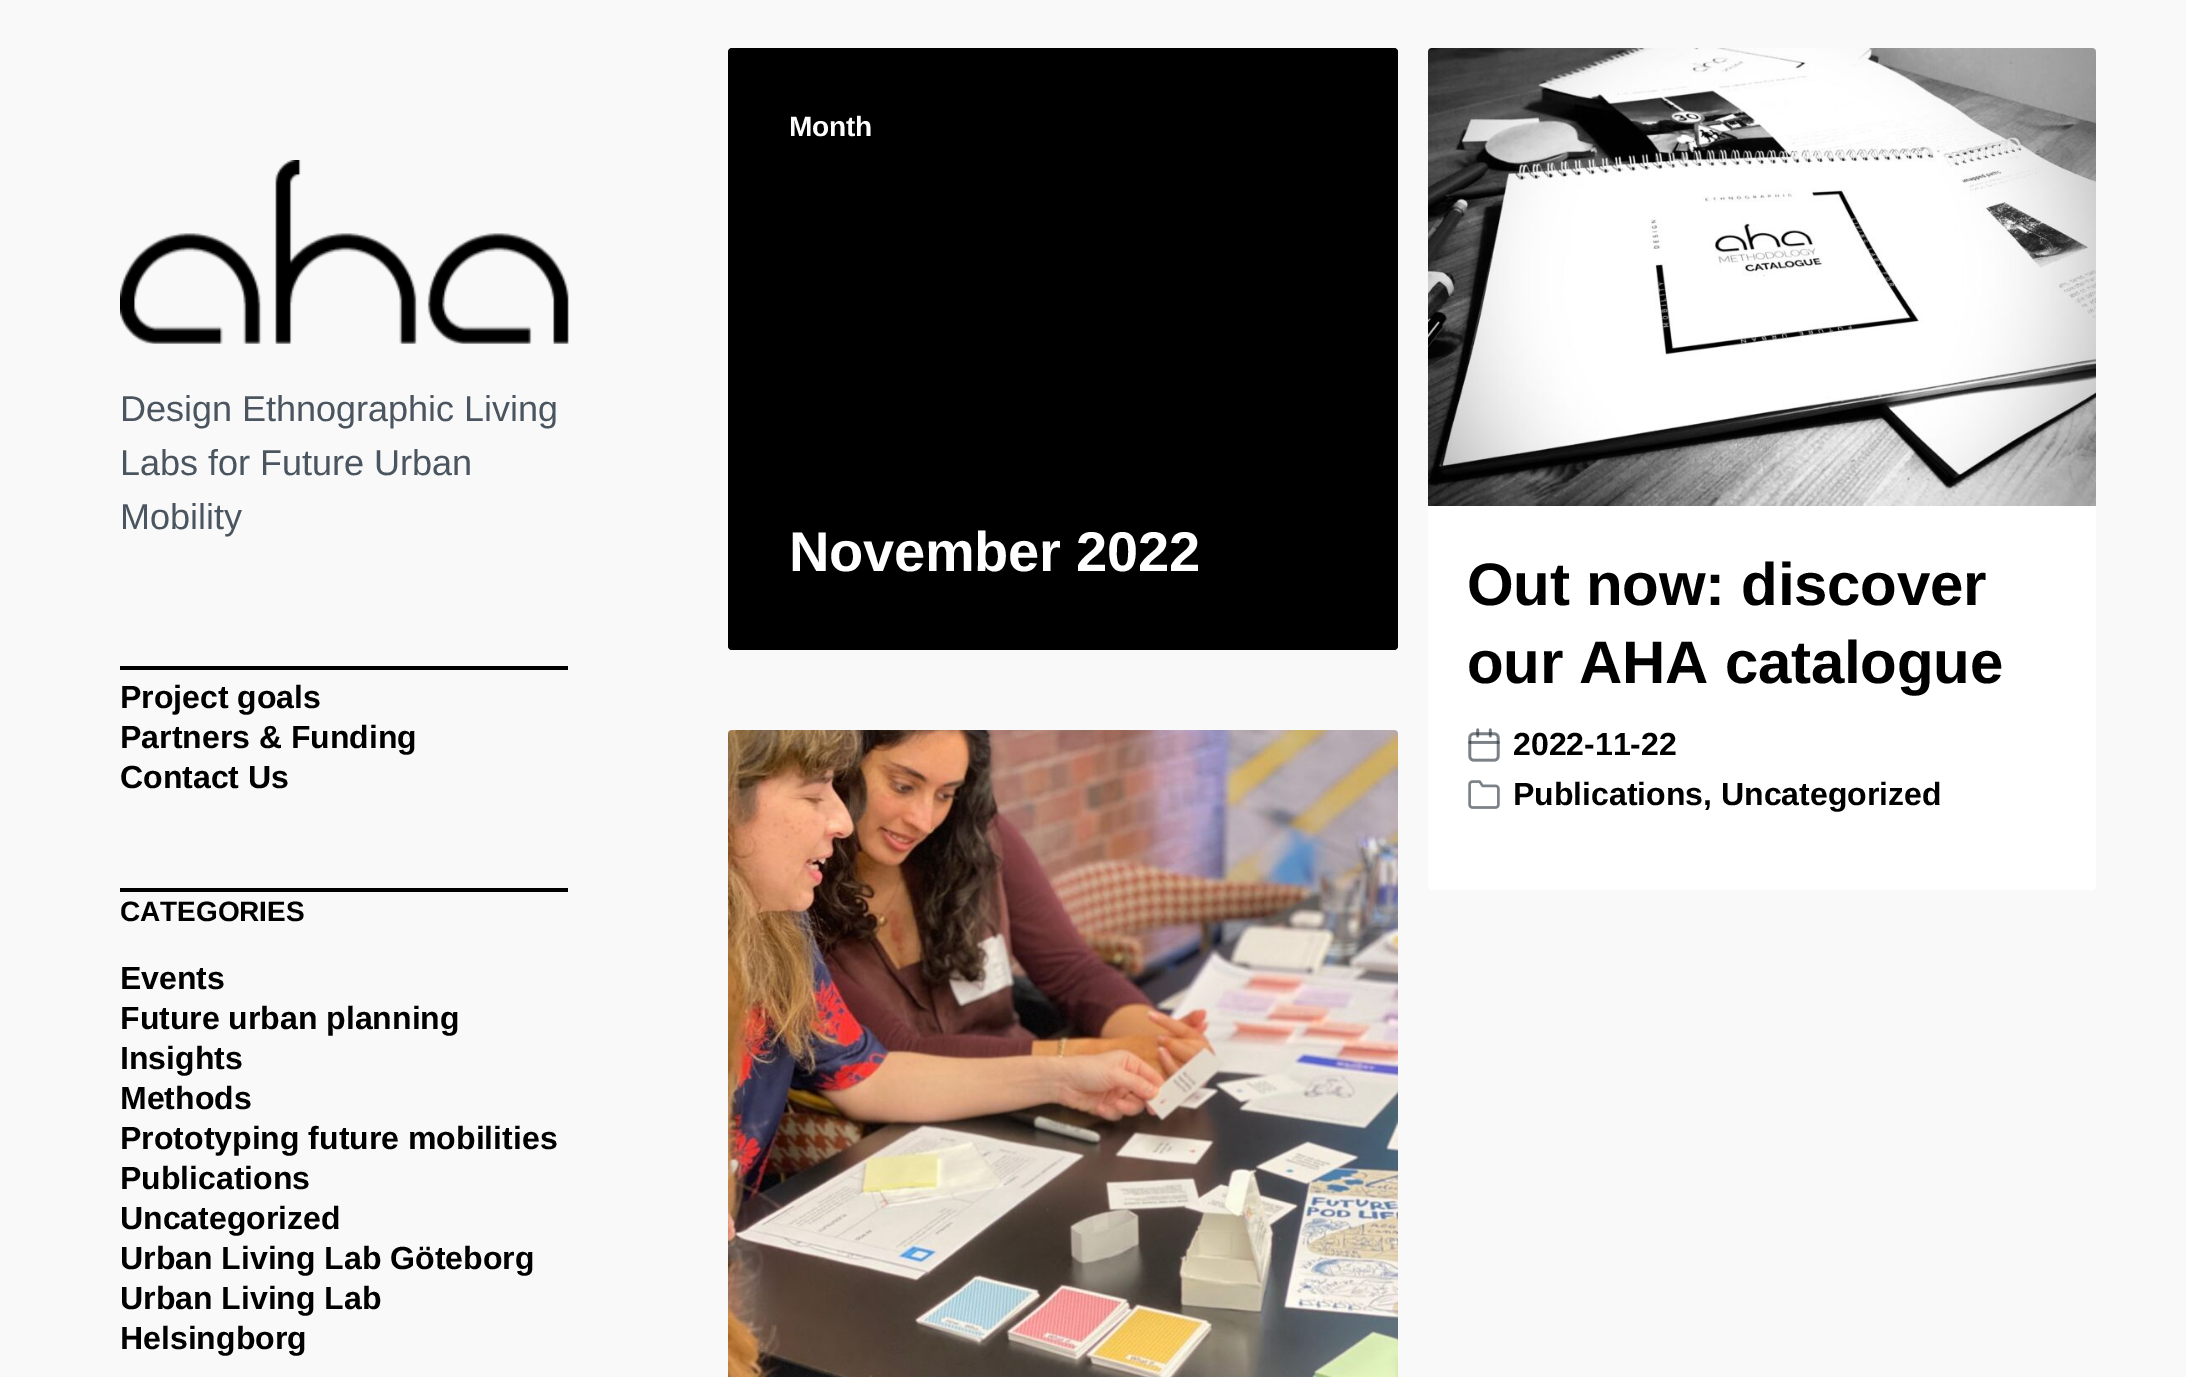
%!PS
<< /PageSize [2186 1377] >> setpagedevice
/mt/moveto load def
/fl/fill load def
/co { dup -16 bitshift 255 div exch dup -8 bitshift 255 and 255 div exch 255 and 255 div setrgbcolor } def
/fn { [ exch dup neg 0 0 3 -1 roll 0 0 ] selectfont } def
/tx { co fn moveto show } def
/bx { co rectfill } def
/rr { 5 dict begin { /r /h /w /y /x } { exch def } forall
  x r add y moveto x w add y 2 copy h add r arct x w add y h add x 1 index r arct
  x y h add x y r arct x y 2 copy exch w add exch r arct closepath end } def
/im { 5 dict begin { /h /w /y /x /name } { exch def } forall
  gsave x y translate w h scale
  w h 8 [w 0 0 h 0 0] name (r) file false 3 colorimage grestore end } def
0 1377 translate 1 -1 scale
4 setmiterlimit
0 0 2186 1377 16#F9F9F9 bx
(media/1.raw) 120 160 449 184 im
120 666 448 4 16#000000 bx
120 888 448 4 16#000000 bx
728 48 670 602 4 rr fl
16#FFFFFF co
1428 48 668 842 4 rr fl
(media/2.raw) 1428 48 668 458 im
(media/3.raw) 1468 728 32 34 im
(media/4.raw) 1468 780 32 29 im
(media/5.raw) 728 730 670 647 im
(Design Ethnographic Living) 120 421 /LiberationSans-Regular 36 16#4B555F tx
(Labs for Future Urban) 120 475 /LiberationSans-Regular 36 16#4B555F tx
(Mobility) 120 529 /LiberationSans-Regular 36 16#4B555F tx
(Project goals) 120 708 /LiberationSans-Bold 32 16#000000 tx
(Partners & Funding) 120 748 /LiberationSans-Bold 32 16#000000 tx
(Contact Us) 120 788 /LiberationSans-Bold 32 16#000000 tx
/LiberationSans-Bold 28 fn
120 921 mt -.1 0 (CATEGORIES) ashow
(Events) 120 989 /LiberationSans-Bold 32 16#000000 tx
(Future urban planning) 120 1029 /LiberationSans-Bold 32 16#000000 tx
(Insights) 120 1069 /LiberationSans-Bold 32 16#000000 tx
(Methods) 120 1109 /LiberationSans-Bold 32 16#000000 tx
(Prototyping future mobilities) 120 1149 /LiberationSans-Bold 32 16#000000 tx
(Publications) 120 1189 /LiberationSans-Bold 32 16#000000 tx
(Uncategorized) 120 1229 /LiberationSans-Bold 32 16#000000 tx
(Urban Living Lab Göteborg) 120 1269 /LiberationSans-Bold 32 16#000000 tx
(Urban Living Lab) 120 1309 /LiberationSans-Bold 32 16#000000 tx
(Helsingborg) 120 1349 /LiberationSans-Bold 32 16#000000 tx
/LiberationSans-Bold 28 fn
16#FFFFFF co
789 136 mt -.1 0 (Month) ashow
/LiberationSans-Bold 56 fn
789 571 mt -.25 0 (November 2022) ashow
/LiberationSans-Bold 60 fn
16#000000 co
1467 605 mt -.25 0 (Out now: discover) ashow
1467 683 mt -.25 0 (our AHA catalogue) ashow
(2022-11-22) 1513 755 /LiberationSans-Bold 32 16#000000 tx
(Publications, Uncategorized) 1513 805 /LiberationSans-Bold 32 16#000000 tx
showpage
